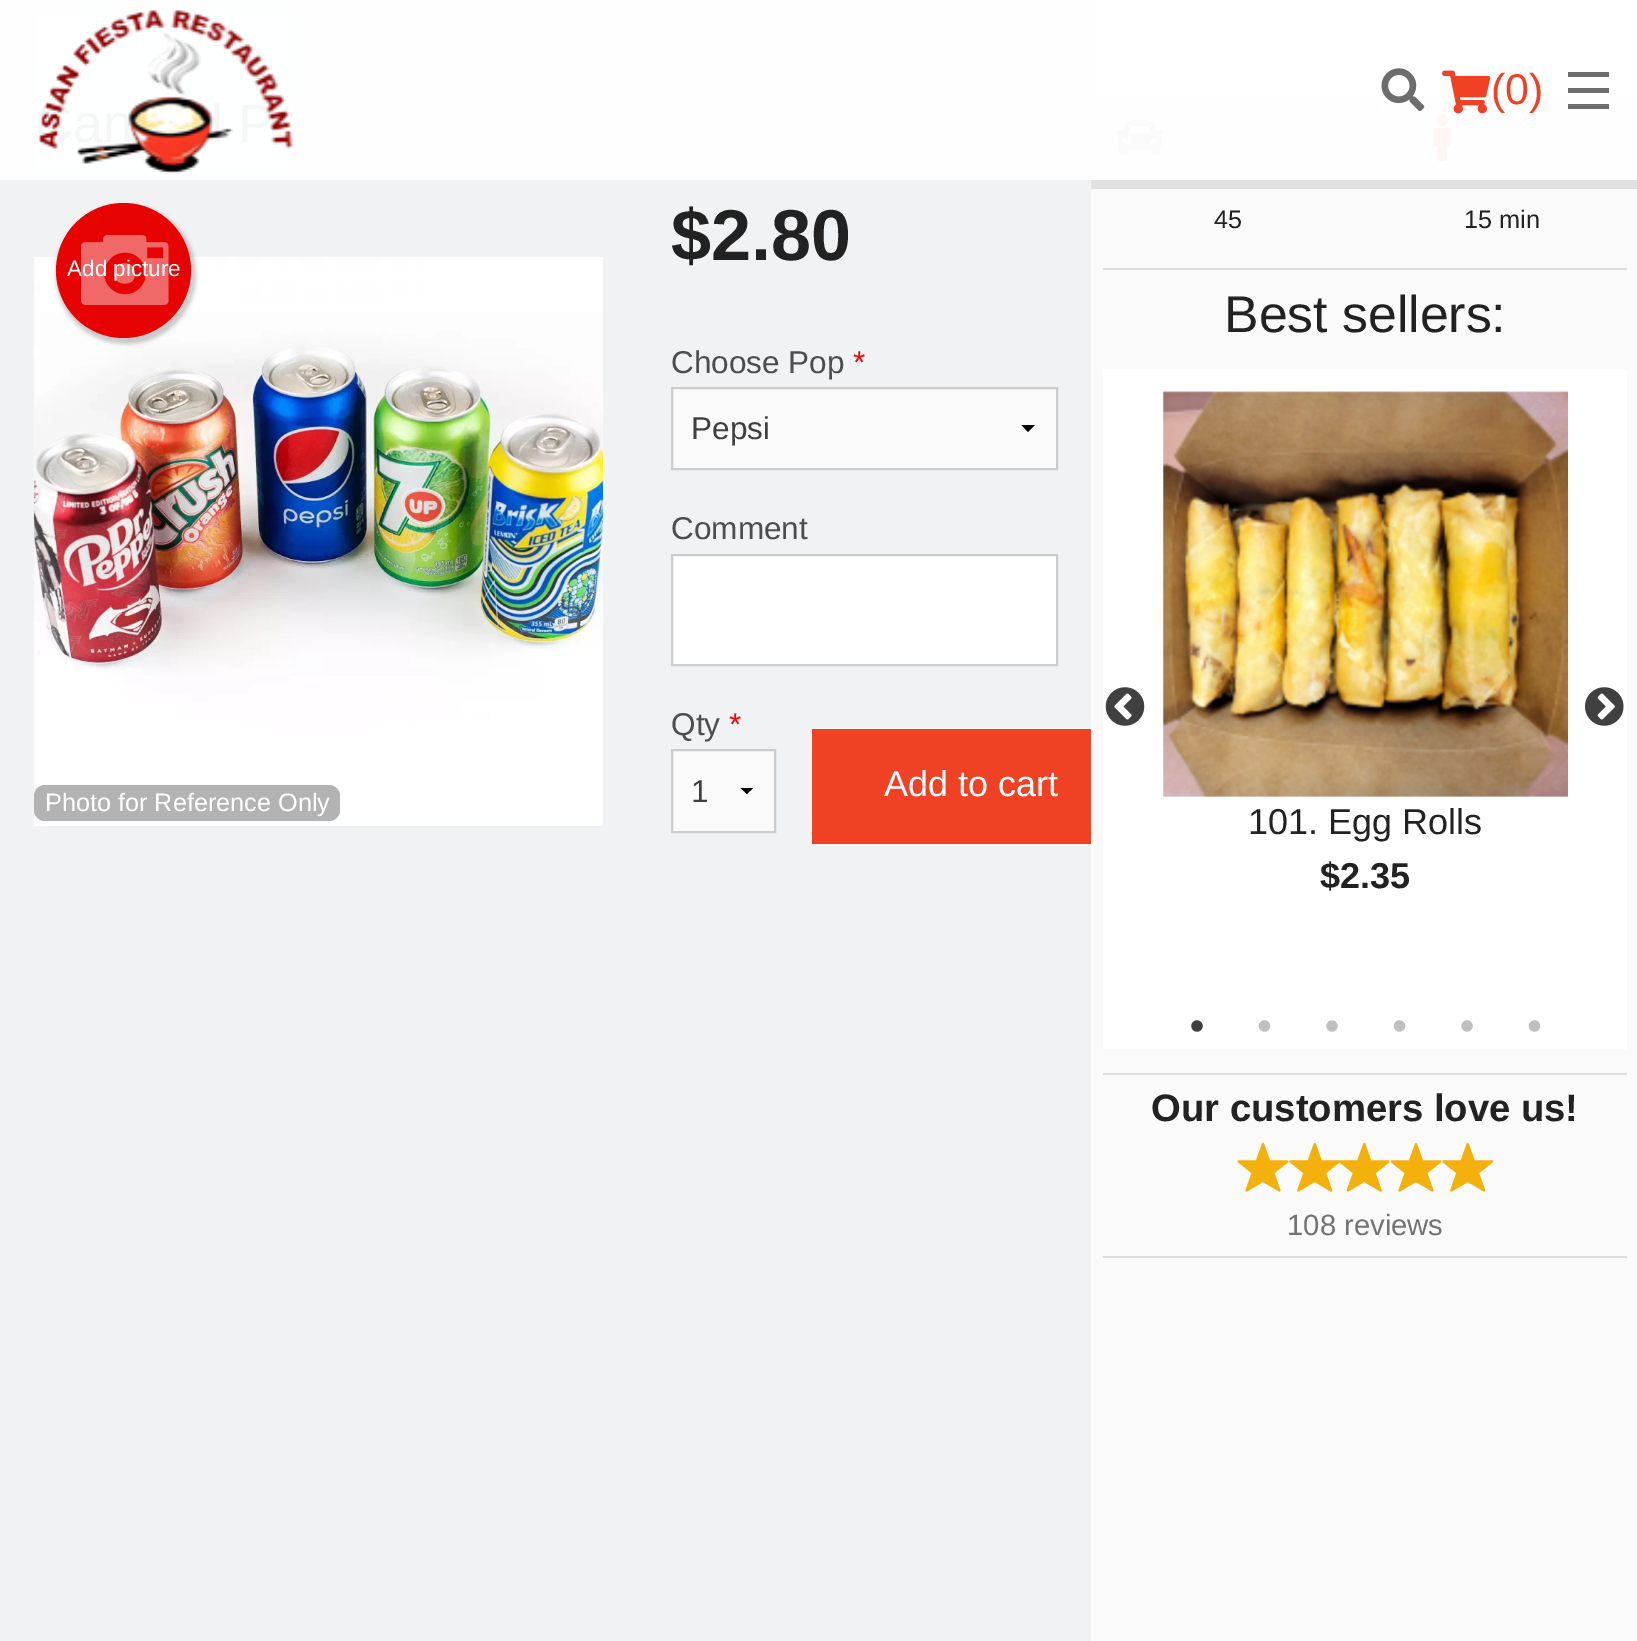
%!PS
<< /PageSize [1637 1641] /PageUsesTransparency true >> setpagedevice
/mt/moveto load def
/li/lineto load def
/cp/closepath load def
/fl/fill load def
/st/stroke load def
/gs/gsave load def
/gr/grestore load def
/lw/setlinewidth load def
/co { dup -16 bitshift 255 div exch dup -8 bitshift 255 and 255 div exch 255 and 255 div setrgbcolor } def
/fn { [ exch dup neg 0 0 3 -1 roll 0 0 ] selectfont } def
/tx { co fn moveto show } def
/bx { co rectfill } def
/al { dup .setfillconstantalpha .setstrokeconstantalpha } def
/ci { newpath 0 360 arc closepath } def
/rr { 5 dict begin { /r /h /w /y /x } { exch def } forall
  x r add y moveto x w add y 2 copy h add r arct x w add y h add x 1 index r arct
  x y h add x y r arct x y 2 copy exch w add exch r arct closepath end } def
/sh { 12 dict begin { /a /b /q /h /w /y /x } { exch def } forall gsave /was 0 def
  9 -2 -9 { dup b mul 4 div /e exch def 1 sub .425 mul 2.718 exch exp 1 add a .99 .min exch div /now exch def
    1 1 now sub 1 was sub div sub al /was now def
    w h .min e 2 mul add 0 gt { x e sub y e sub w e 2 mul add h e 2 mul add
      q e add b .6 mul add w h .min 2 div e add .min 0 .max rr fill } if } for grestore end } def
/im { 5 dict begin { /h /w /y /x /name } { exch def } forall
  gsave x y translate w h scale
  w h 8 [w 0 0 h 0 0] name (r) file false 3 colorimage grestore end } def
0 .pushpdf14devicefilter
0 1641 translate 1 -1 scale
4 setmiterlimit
0 0 1637 1641 16#F1F2F3 bx
0 0 1091 180 16#FEFEFF bx
(media/1.raw) 38 10 255 164 im
1091 0 546 95 16#FFFFFF bx
1091 95 546 85 16#FEFEFE bx
(media/2.raw) 1381 68 44 44 im
(media/3.raw) 1442 70 49 44 im
1568 104 41 5 16#6D6D6D bx
1568 88 41 5 16#6D6D6D bx
1568 72 41 5 16#6D6D6D bx
(media/4.raw) 33 257 570 569 im
16#000000 co
56 205 140 139 69.5 2 .2 sh
16#E60301 co
123.5 270.5 67.5 ci fl
(media/5.raw) 81 235 88 70 im
16#B3B3B3 co
34 785 306 36 11 rr fl
673 389 383 79 16#FAFAFA bx
16#000000 co
1035 425 mt 1028 432 li 1021.5 425 li cp fl
16#CCCCCC co
2 lw
672 388 385 81 rectstroke
16#FFFFFF co
672 555 mt 1057 555 li 1057 665 li 672 665 li cp gs fl gr
16#CCCCCC co
st
673 751 101 80 16#FAFAFA bx
gs
720 788 54 7 rectclip
16#000000 co
753.5 787.5 mt 747 794 li 740 787.5 li cp fl
gr
16#CCCCCC co
672 750 103 82 rectstroke
812 729 279 115 16#F04124 bx
1091 189 546 1452 16#FAFAFA bx
1091 180 546 9 16#E1E1E1 bx
(media/6.raw) 1116 120 47 36 im
(media/7.raw) 1433 114 18 48 im
1103 268 524 2 16#DDDDDD bx
1103 369 524 680 16#FFFFFF bx
(media/8.raw) 1105 687 40 39 im
(media/9.raw) 1585 687 39 39 im
(media/10.raw) 1163 391 405 406 im
(media/11.raw) 1191 1020 12 12 im
(media/12.raw) 1258 1020 13 12 im
(media/13.raw) 1326 1020 12 12 im
(media/12.raw) 1393 1020 13 12 im
(media/13.raw) 1461 1020 12 12 im
(media/12.raw) 1528 1020 13 12 im
1103 1073 524 2 16#DDDDDD bx
(media/14.raw) 1237 1142 52 50 im
(media/15.raw) 1289 1142 51 50 im
(media/16.raw) 1339 1142 51 50 im
(media/14.raw) 1390 1142 52 50 im
(media/17.raw) 1442 1142 52 50 im
1103 1256 524 2 16#DDDDDD bx
(\(0\)) 1491 104 /LiberationSans-Regular 43 16#F04124 tx
(Add picture) 67 276 /LiberationSans-Regular 22.5 16#FFFFFF tx
(Photo for Reference Only) 45 811 /LiberationSans-Regular 25.25 16#FFFFFF tx
($2.80) 671 260 /LiberationSans-Bold 72 16#222222 tx
(Choose Pop) 671 373 /LiberationSans-Regular 31.5 16#4D4D4D tx
(*) 853 373 /LiberationSans-Regular 31.5 16#FF0000 tx
(Pepsi) 691 439 /LiberationSans-Regular 31.5 16#3F3F3F tx
(Comment) 671 539 /LiberationSans-Regular 31.5 16#4D4D4D tx
(Qty) 671 735 /LiberationSans-Regular 31.5 16#4D4D4D tx
(*) 729 735 /LiberationSans-Regular 31.5 16#FF0000 tx
(1) 691 802 /LiberationSans-Regular 31.5 16#3F3F3F tx
(Add to cart) 884 796 /LiberationSans-Regular 36 16#FFFFFF tx
(45) 1214 228 /LiberationSans-Regular 25.25 16#222222 tx
(15 min) 1464 228 /LiberationSans-Regular 25.25 16#222222 tx
(Best sellers:) 1224 332 /LiberationSans-Regular 51.75 16#222222 tx
(101. Egg Rolls) 1248 834 /LiberationSans-Regular 36 16#222222 tx
($2.35) 1320 888 /LiberationSans-Bold 36 16#222222 tx
(Our customers love us!) 1151 1121 /LiberationSans-Bold 38.25 16#222222 tx
(108 reviews) 1287 1235 /LiberationSans-Regular 29.25 16#737373 tx
.poppdf14devicefilter showpage
